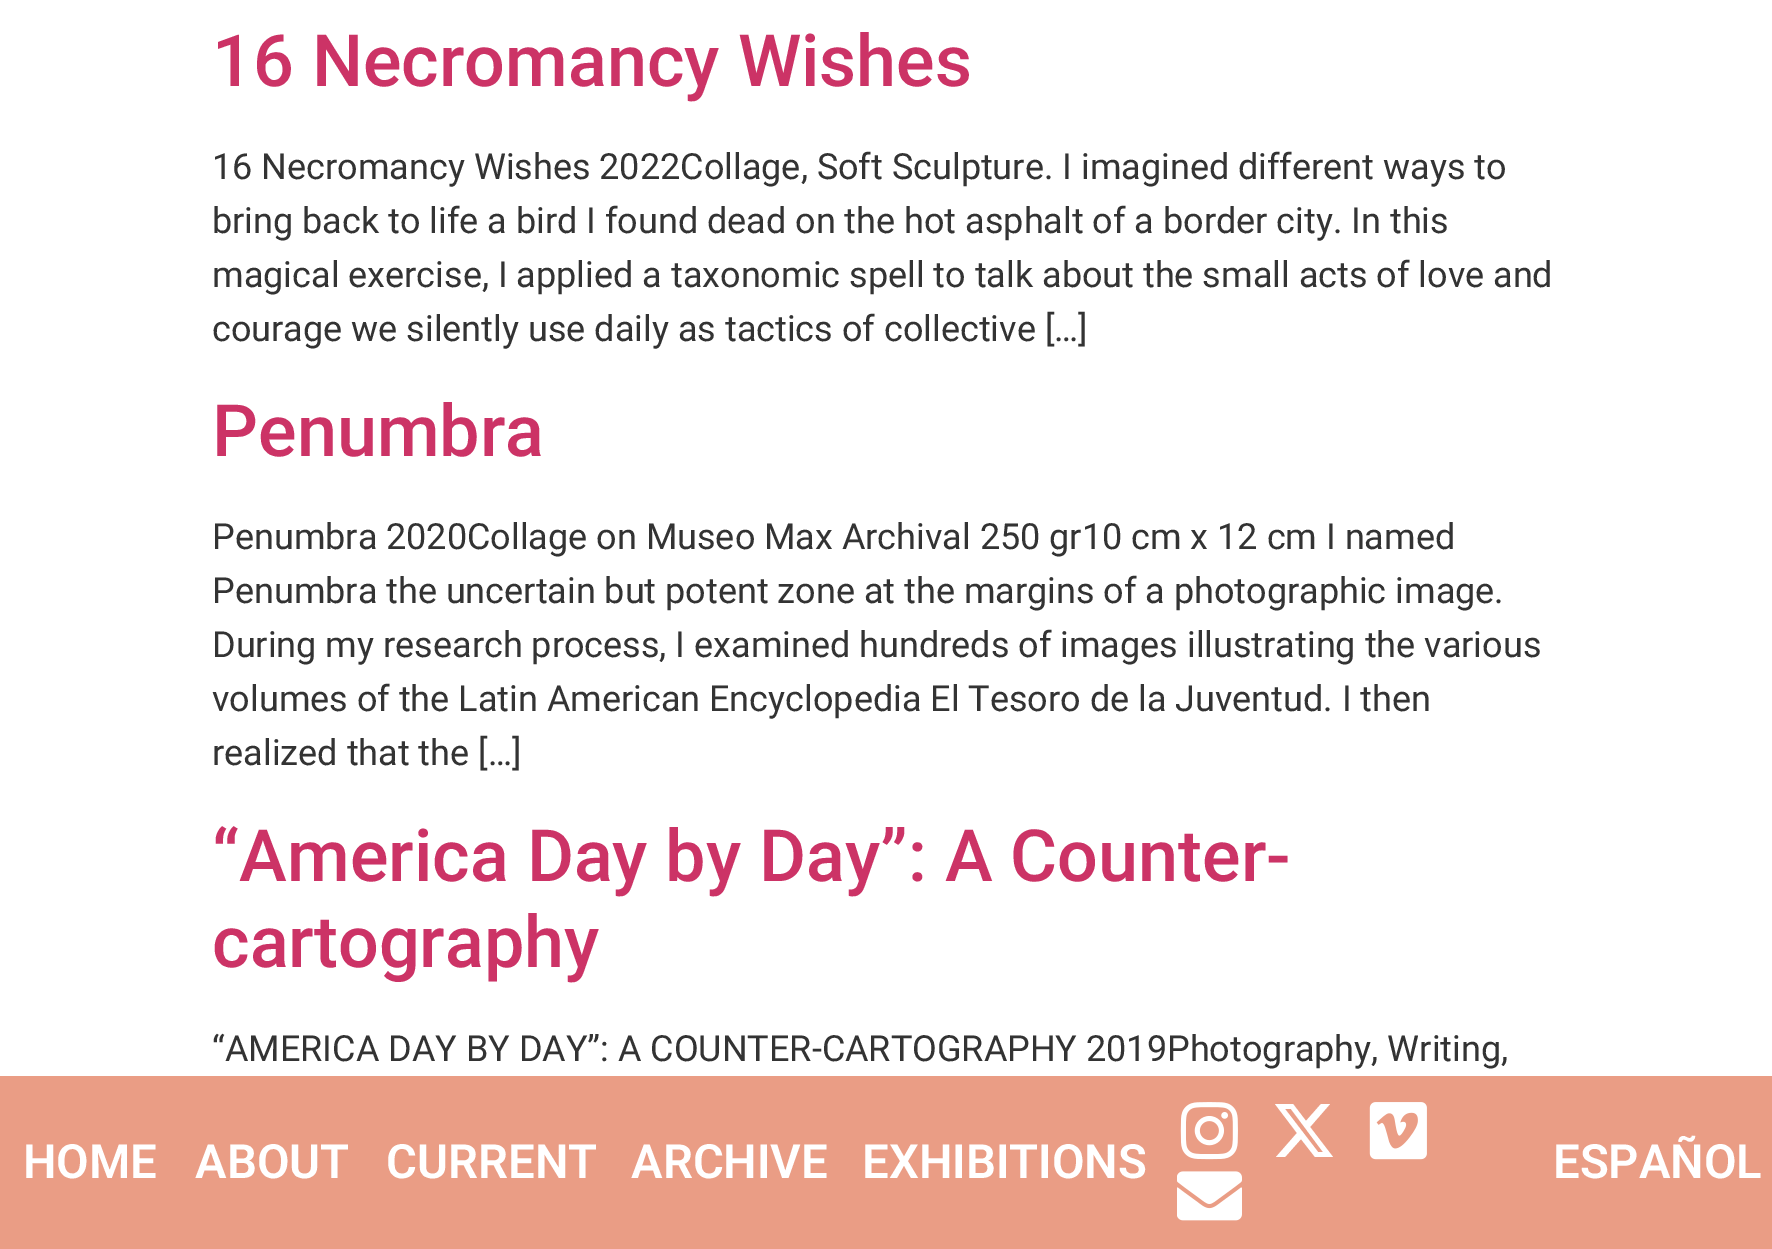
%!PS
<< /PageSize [1772 1249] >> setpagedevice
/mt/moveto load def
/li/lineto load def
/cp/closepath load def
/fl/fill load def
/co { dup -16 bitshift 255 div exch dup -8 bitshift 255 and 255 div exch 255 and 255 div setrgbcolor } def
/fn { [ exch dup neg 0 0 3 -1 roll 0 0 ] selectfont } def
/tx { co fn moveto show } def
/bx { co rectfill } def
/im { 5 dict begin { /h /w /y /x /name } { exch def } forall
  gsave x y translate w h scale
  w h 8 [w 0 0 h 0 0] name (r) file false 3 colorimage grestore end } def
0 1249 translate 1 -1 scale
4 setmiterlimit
0 0 1772 1249 16#FFFFFF bx
0 1076 1772 173 16#EA9D85 bx
(media/1.raw) 1180 1102 58 58 im
16#FFFFFF co
1321 1104 mt 1330 1104 li 1310 1127 li 1333 1157 li 1315 1157 li 1301 1139 li 1285 1157 li 1276 1157 li 1297 1133 li 1275 1104 li 1293 1104 li 1306 1121 li cp 1318 1152 mt 1323 1152 li 1291 1109 li 1285 1109 li cp fl
(media/2.raw) 1369 1102 58 58 im
(media/3.raw) 1177 1171 65 50 im
(16 Necromancy Wishes) 212 86 /Roboto-Medium 72 16#CC3366 tx
(16 Necromancy Wishes 2022Collage, Soft Sculpture. I imagined different ways to) 212 179 /Roboto-Regular 36 16#333333 tx
(bring back to life a bird I found dead on the hot asphalt of a border city. In this) 212 233 /Roboto-Regular 36 16#333333 tx
(magical exercise, I applied a taxonomic spell to talk about the small acts of love and) 212 287 /Roboto-Regular 36 16#333333 tx
(courage we silently use daily as tactics of collective […]) 212 341 /Roboto-Regular 36 16#333333 tx
(Penumbra) 212 456 /Roboto-Medium 72 16#CC3366 tx
(Penumbra 2020Collage on Museo Max Archival 250 gr10 cm x 12 cm I named) 212 549 /Roboto-Regular 36 16#333333 tx
(Penumbra the uncertain but potent zone at the margins of a photographic image.) 212 603 /Roboto-Regular 36 16#333333 tx
(During my research process, I examined hundreds of images illustrating the various) 212 657 /Roboto-Regular 36 16#333333 tx
(volumes of the Latin American Encyclopedia El Tesoro de la Juventud. I then) 212 711 /Roboto-Regular 36 16#333333 tx
(realized that the […]) 212 765 /Roboto-Regular 36 16#333333 tx
(“America Day by Day”: A Counter-) 212 881 /Roboto-Medium 72 16#CC3366 tx
(cartography) 212 967 /Roboto-Medium 72 16#CC3366 tx
(“AMERICA DAY BY DAY”: A COUNTER-CARTOGRAPHY 2019Photography, Writing,) 212 1061 /Roboto-Regular 36 16#333333 tx
(HOME) 23 1178 /Roboto-SemiBold 47.25 16#FFFFFF tx
(ABOUT) 195 1178 /Roboto-SemiBold 47.25 16#FFFFFF tx
(CURRENT) 386 1178 /Roboto-SemiBold 47.25 16#FFFFFF tx
(ARCHIVE) 631 1178 /Roboto-SemiBold 47.25 16#FFFFFF tx
(EXHIBITIONS) 862 1178 /Roboto-SemiBold 47.25 16#FFFFFF tx
(ESPAÑOL) 1553 1178 /Roboto-SemiBold 47.25 16#FFFFFF tx
showpage
